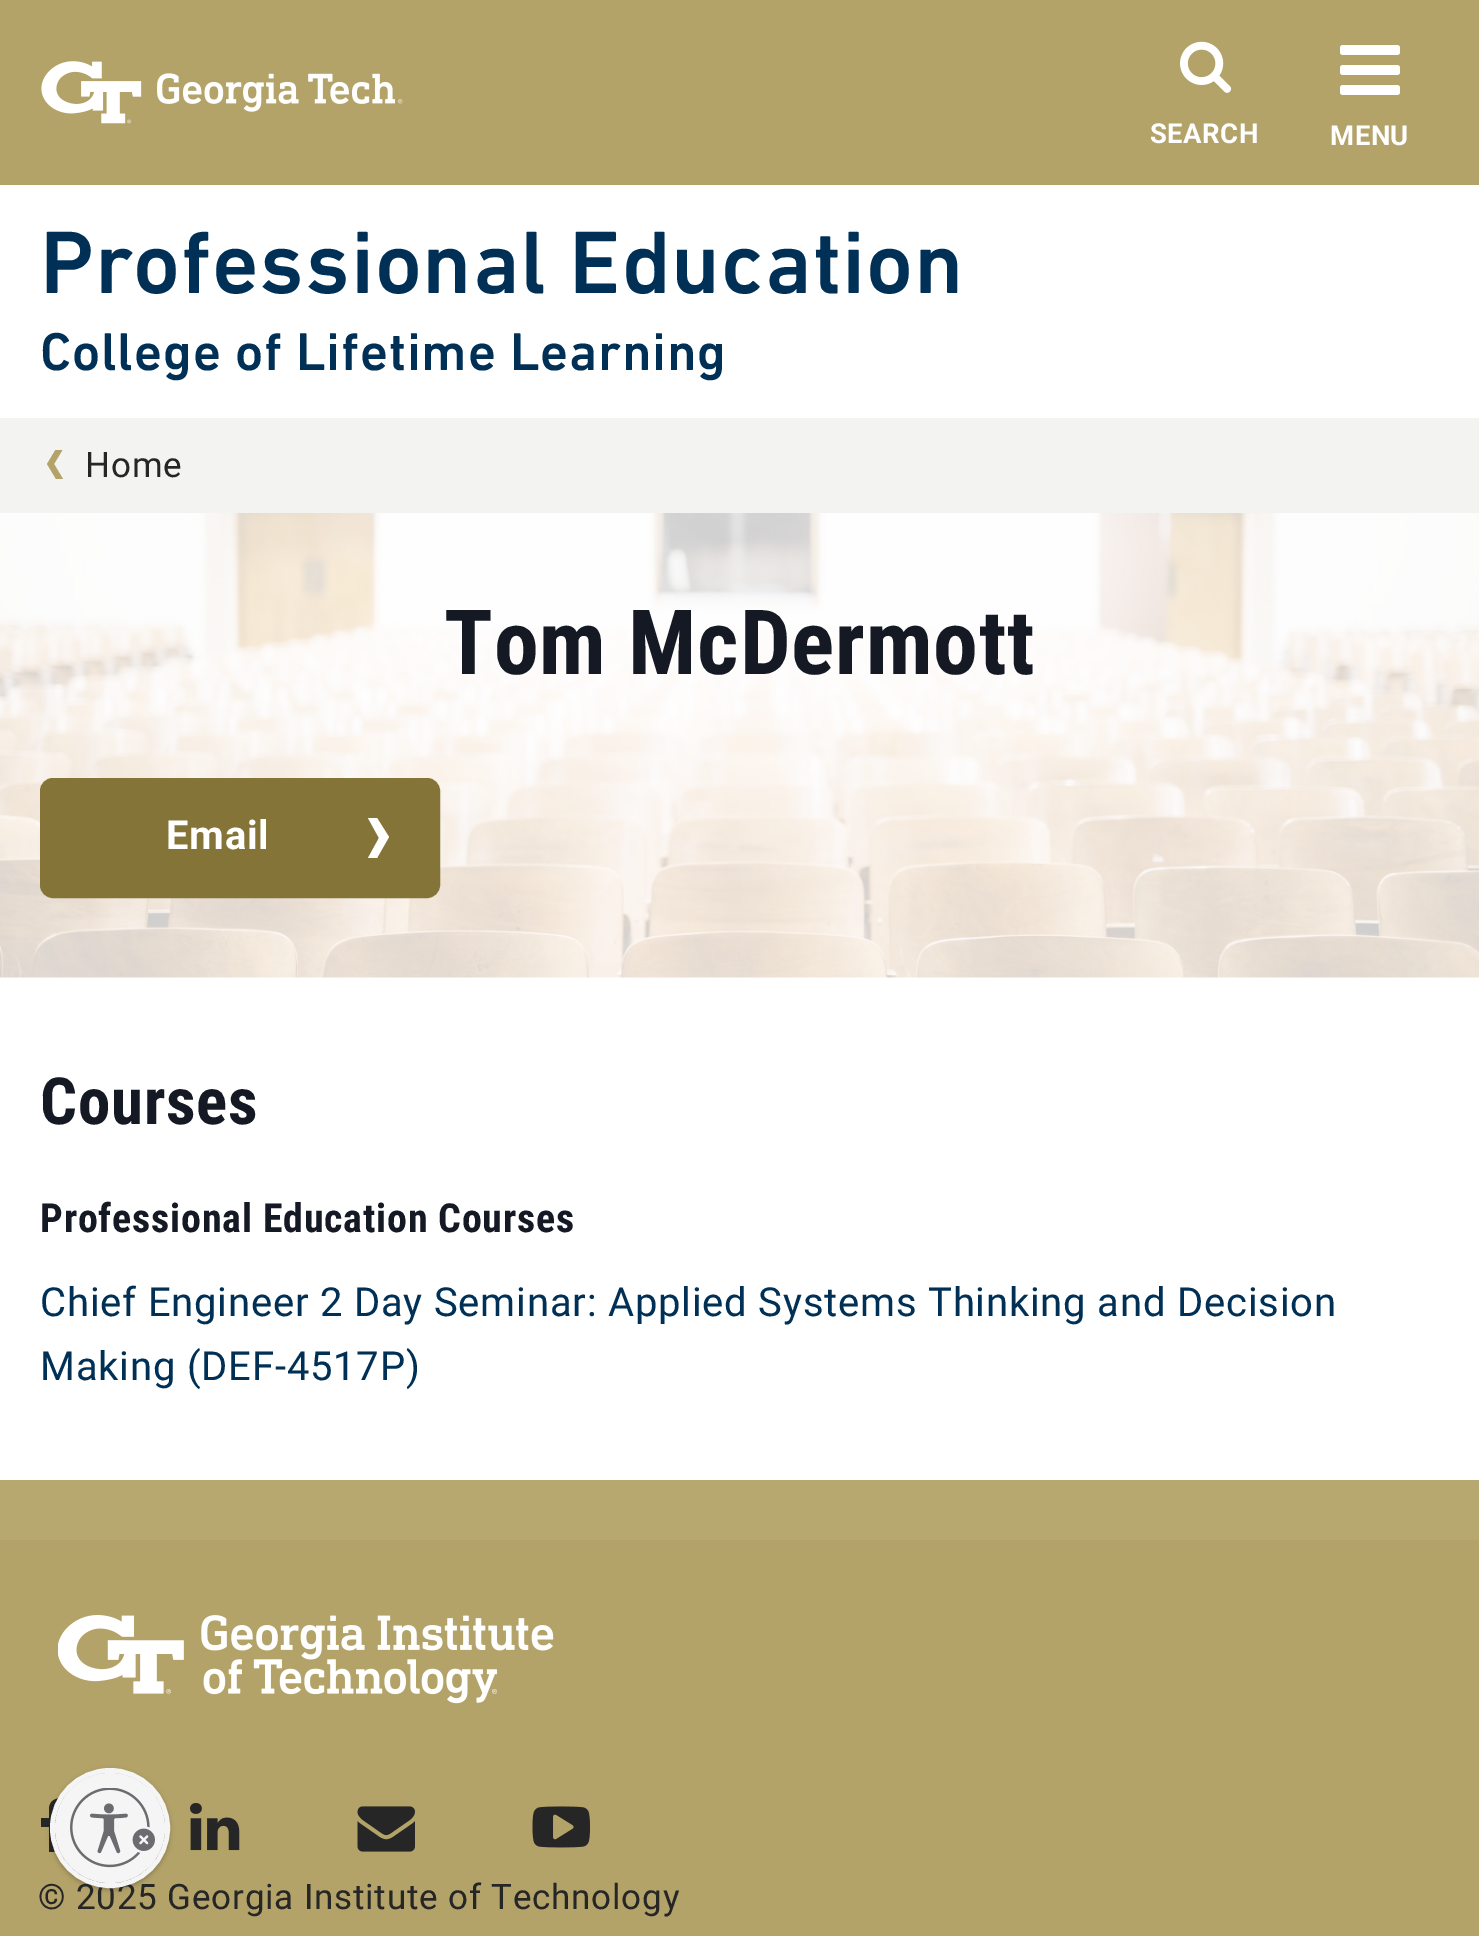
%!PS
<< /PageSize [1479 1936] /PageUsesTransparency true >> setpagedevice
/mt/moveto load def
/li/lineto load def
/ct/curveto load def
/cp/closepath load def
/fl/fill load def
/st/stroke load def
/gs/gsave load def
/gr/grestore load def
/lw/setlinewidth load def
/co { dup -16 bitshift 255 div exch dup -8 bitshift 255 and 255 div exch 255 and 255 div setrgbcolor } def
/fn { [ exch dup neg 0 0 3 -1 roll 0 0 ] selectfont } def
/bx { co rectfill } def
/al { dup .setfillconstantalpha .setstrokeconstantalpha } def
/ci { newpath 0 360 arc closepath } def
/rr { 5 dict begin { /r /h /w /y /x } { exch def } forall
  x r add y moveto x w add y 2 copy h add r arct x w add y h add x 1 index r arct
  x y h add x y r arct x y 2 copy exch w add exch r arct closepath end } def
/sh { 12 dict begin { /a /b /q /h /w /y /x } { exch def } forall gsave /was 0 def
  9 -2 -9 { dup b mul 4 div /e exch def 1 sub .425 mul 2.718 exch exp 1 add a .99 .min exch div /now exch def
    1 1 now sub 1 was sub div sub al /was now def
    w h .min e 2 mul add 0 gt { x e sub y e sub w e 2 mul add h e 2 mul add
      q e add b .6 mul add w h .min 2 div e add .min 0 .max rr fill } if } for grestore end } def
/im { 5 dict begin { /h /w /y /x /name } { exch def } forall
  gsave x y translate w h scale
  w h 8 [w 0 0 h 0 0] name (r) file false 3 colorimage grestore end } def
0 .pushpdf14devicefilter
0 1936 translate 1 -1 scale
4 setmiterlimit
0 0 1479 1936 16#FFFFFF bx
0 0 1479 185 16#B3A369 bx
(media/1.raw) 41 61 362 63 im
(media/2.raw) 1180 41 52 52 im
(media/3.raw) 1340 45 60 50 im
0 418 1479 95 16#F3F4F2 bx
gs
40 450 30 30 rectclip
16#B3A369 co
54 464 mt 63 449 li 56 449 li 47 464 li 56 479 li 63 479 li cp fl
gr
(media/4.raw) 0 513 1479 465 im
16#857437 co
42.5 780.5 395 115 10.5 rr gs fl gr
5 lw
st
16#FFFFFF co
379 838 mt 368 858 li 377 858 li 389 837 li 377 818 li 368 818 li cp fl
0 1540 1479 396 16#B3A369 bx
0 1480 1479 60 16#B6A86E bx
(media/5.raw) 58 1615 496 89 im
16#262626 co
68 1799 mt 68 1807 li 58 1807 59 1808 59 1818 ct 68 1818 li 67 1827 li 59 1827 li 59 1852 li 49 1852 li 49 1827 li 41 1827 li 41 1818 li 49 1818 li 49 1808 li 50 1798 60 1797 68 1799 ct cp fl
(media/6.raw) 190 1803 50 48 im
(media/7.raw) 357 1806 58 46 im
(media/8.raw) 532 1806 58 42 im
16#000000 co
50 1770 120 120 60 2.5 .24 sh
/Roboto-Bold 27.5 fn
16#FFFFFF co
1150 143 mt .5 0 (SEARCH) ashow
1330 145 mt .5 0 (MENU) ashow
/DINNext-Medium 90 fn
16#003056 co
40 293 mt .8 0 (Professional Education) ashow
/DINNext-Medium 54 fn
40 370 mt .8 0 (College of Lifetime Learning) ashow
/Roboto-Regular 35 fn
16#262626 co
85 477 mt .8 0 (Home) ashow
/RobotoCondensed-Bold 90 fn
16#141923 co
444 674 mt .8 0 (Tom McDermott) ashow
/Roboto-Bold 40 fn
16#FFFFFF co
166 849 mt .8 0 (Email) ashow
/RobotoCondensed-Bold 65 fn
16#141923 co
40 1124 mt .8 0 (Courses) ashow
/RobotoCondensed-Bold 40 fn
40 1232 mt .8 0 (Professional Education Courses) ashow
/Roboto-Regular 40 fn
16#003056 co
40 1316 mt .8 0 (Chief Engineer 2 Day Seminar: Applied Systems Thinking and Decision) ashow
40 1380 mt .8 0 (Making \(DEF-4517P\)) ashow
/Roboto-Regular 35 fn
16#262626 co
38 1909 mt .8 0 (© 2025 Georgia Institute of Technology) ashow
16#F5F5F5 co
110 1828 57.5 ci st
gs
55 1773 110 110 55 rr clip newpath
16#000000 co
55 1775 110 110 55 2.5 .24 sh
gr
110 1828 55 ci fl
(media/9.raw) 70 1788 85 80 im
.poppdf14devicefilter showpage
